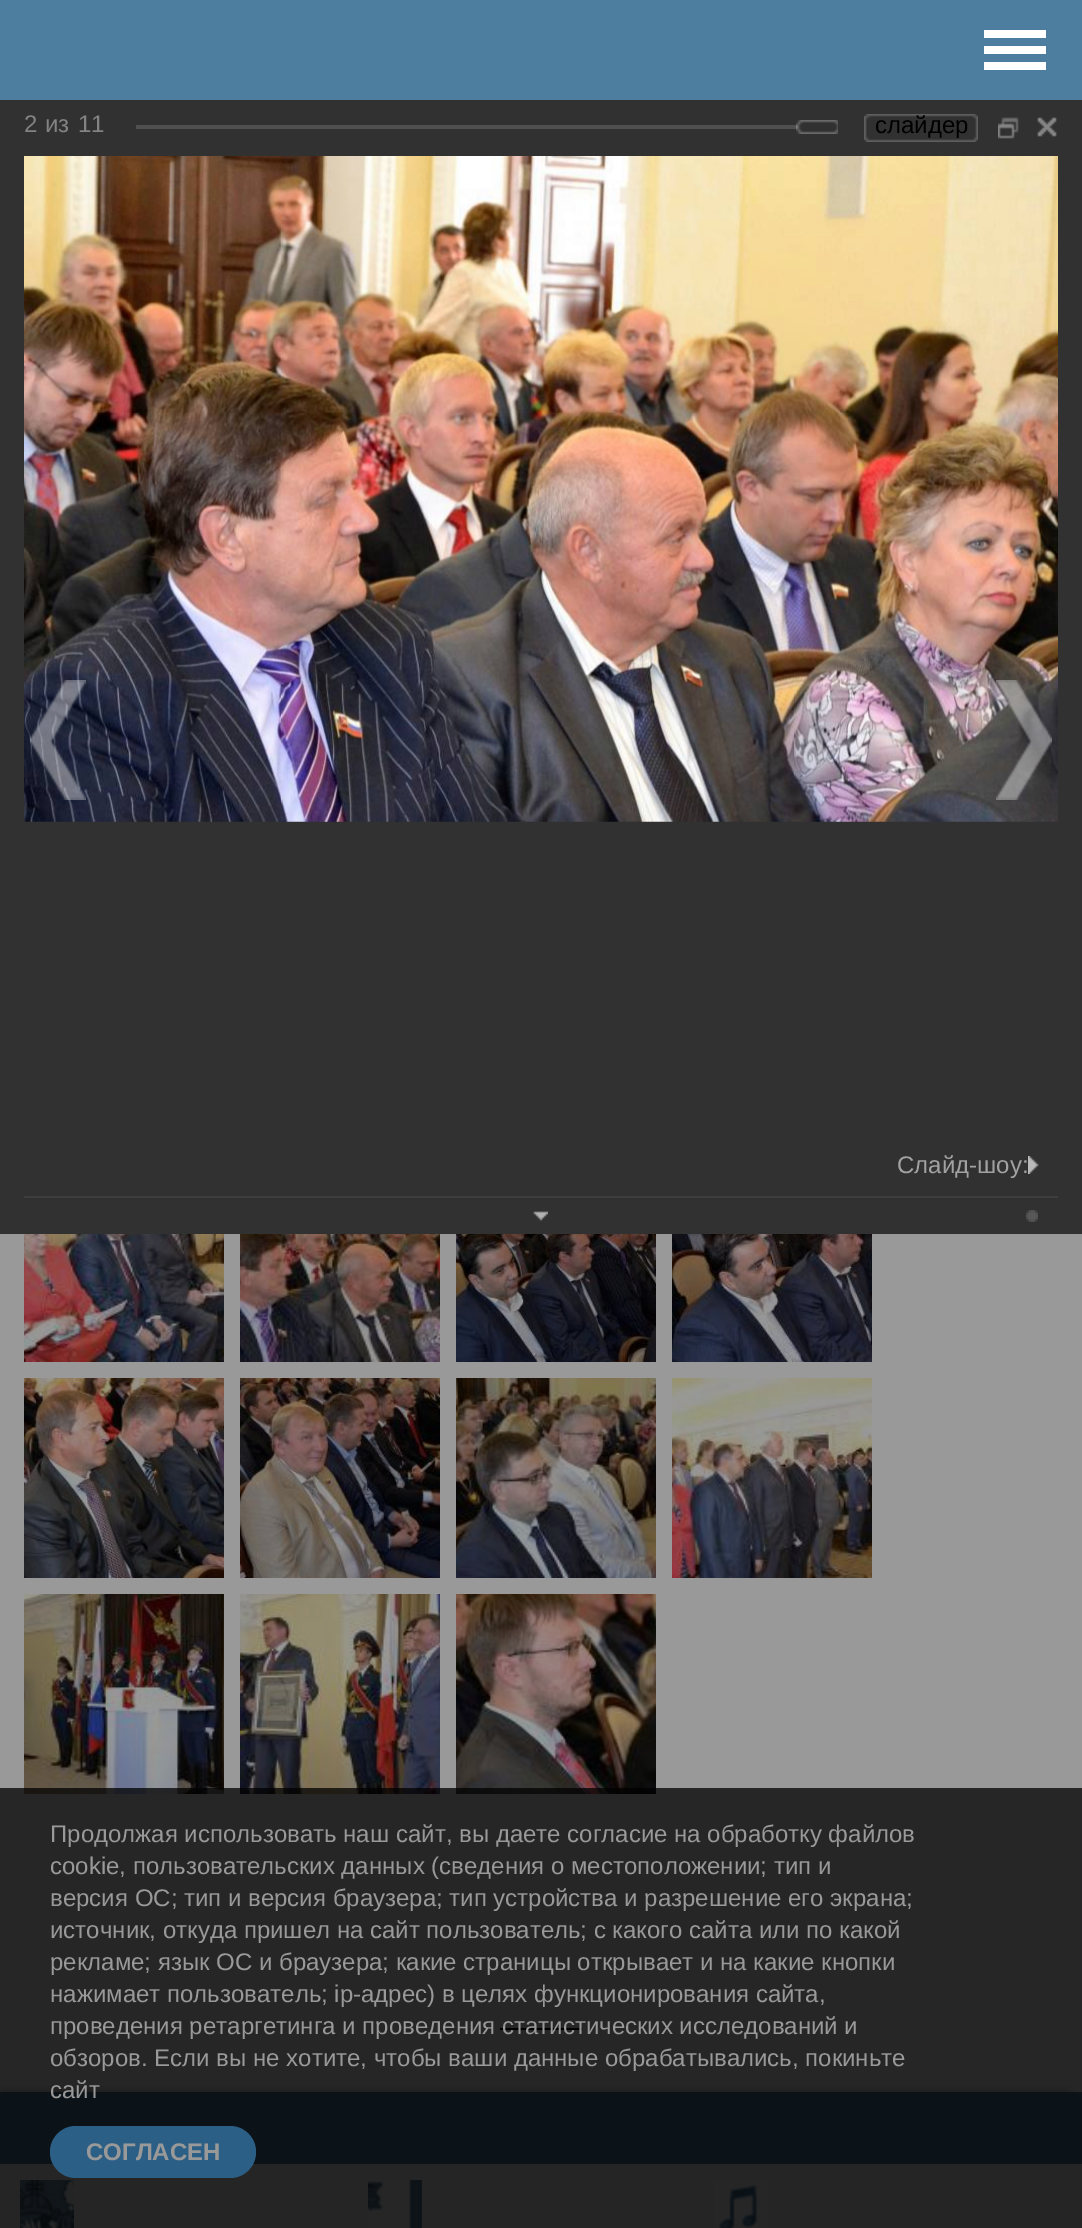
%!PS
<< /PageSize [1082 2228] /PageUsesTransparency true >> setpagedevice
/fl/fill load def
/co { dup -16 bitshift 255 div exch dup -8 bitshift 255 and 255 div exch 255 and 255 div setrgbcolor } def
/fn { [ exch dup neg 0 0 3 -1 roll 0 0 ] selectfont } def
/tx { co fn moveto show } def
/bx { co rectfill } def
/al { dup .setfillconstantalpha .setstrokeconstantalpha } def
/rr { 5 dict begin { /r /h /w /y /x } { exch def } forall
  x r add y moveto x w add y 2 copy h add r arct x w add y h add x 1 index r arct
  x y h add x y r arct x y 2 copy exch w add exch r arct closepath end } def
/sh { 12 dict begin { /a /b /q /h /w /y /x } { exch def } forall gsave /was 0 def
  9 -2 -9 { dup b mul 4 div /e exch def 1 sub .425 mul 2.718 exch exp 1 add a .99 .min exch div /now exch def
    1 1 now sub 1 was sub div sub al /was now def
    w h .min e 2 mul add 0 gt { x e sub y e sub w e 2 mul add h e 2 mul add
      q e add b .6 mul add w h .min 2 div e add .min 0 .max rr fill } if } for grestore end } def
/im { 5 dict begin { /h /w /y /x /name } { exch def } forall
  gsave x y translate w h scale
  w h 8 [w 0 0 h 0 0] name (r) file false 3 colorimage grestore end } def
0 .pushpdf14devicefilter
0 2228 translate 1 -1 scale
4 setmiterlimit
0 0 1082 2228 16#999999 bx
0 0 1082 100 16#4D7E9F bx
984 46 62 8 16#FFFFFF bx
984 30 62 8 16#FFFFFF bx
984 62 62 8 16#FFFFFF bx
(media/1.raw) 24 1234 200 128 im
(media/2.raw) 240 1234 200 128 im
(media/3.raw) 456 1234 200 128 im
(media/4.raw) 672 1234 200 128 im
(media/5.raw) 24 1378 200 200 im
(media/6.raw) 240 1378 200 200 im
(media/7.raw) 456 1378 200 200 im
(media/8.raw) 672 1378 200 200 im
(media/9.raw) 24 1594 200 200 im
(media/10.raw) 240 1594 200 200 im
(media/11.raw) 456 1594 200 200 im
500 2028 82 2 16#000000 bx
16#142430 co
-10 2088 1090 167 18 3 .2 sh
0 2164 1081 64 16#939393 bx
0 2092 1082 72 16#2E4C5F bx
(media/12.raw) 20 2180 54 48 im
(media/13.raw) 368 2180 54 48 im
(media/14.raw) 714 2180 54 48 im
0 100 1082 1134 16#313131 bx
136 125 660 4 16#505050 bx
(media/15.raw) 796 120 42 14 im
(media/16.raw) 864 114 108 28 im
(media/17.raw) 972 114 6 28 im
(media/18.raw) 998 117 21 22 im
(media/19.raw) 1037 117 20 20 im
(media/20.raw) 24 156 1034 666 im
24 1196 1034 2 16#3D3D3D bx
(media/21.raw) 1028 1156 11 18 im
(media/22.raw) 533 1211 15 10 im
(media/23.raw) 1026 1210 12 12 im
(media/24.raw) 30 680 56 120 im
(media/25.raw) 996 680 56 120 im
0.75 al
0 1788 1082 440 16#000000 bx
1 al
16#2C5F86 co
50 2126 206 52 26 rr fl
(2) 24 132 /LiberationSans-Regular 24 16#838383 tx
(из) 45 132 /LiberationSans-Regular 24 16#838383 tx
(11) 78 132 /LiberationSans-Regular 24 16#838383 tx
(слайдер) 875 133 /LiberationSans-Regular 24 16#000000 tx
(Слайд-шоу:) 897 1173 /LiberationSans-Regular 24 16#A2A2A2 tx
(Продолжая использовать наш сайт, вы даете согласие на обработку файлов) 50 1842 /LiberationSans-Regular 24 16#999999 tx
(cookie, пользовательских данных \(сведения о местоположении; тип и) 50 1874 /LiberationSans-Regular 24 16#999999 tx
(версия ОС; тип и версия браузера; тип устройства и разрешение его экрана;) 50 1906 /LiberationSans-Regular 24 16#999999 tx
(источник, откуда пришел на сайт пользователь; с какого сайта или по какой) 50 1938 /LiberationSans-Regular 24 16#999999 tx
(рекламе; язык ОС и браузера; какие страницы открывает и на какие кнопки) 50 1970 /LiberationSans-Regular 24 16#999999 tx
(нажимает пользователь; ip-адрес\) в целях функционирования сайта,) 50 2002 /LiberationSans-Regular 24 16#999999 tx
(проведения ретаргетинга и проведения статистических исследований и) 50 2034 /LiberationSans-Regular 24 16#999999 tx
(обзоров. Если вы не хотите, чтобы ваши данные обрабатывались, покиньте) 50 2066 /LiberationSans-Regular 24 16#999999 tx
(сайт) 50 2098 /LiberationSans-Regular 24 16#999999 tx
(СОГЛАСЕН) 86 2160 /LiberationSans-Bold 24 16#999999 tx
.poppdf14devicefilter showpage
